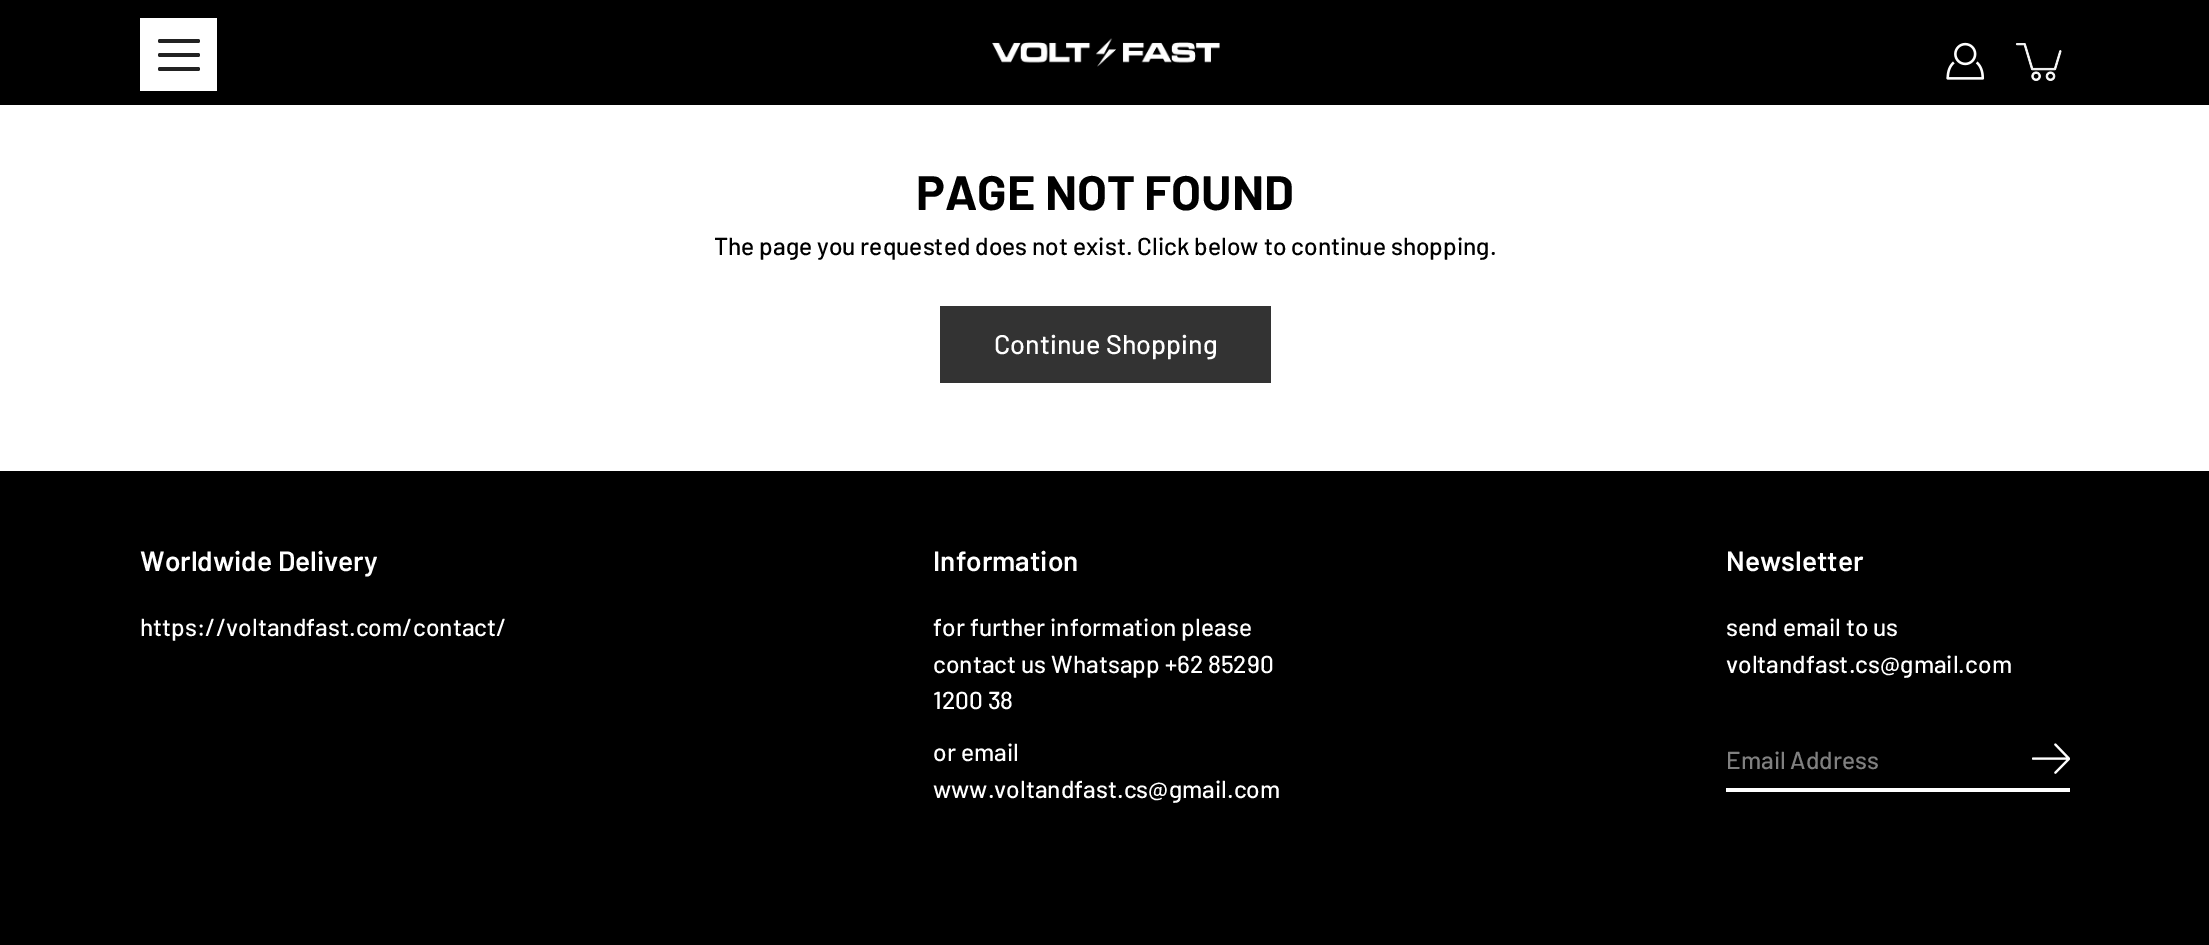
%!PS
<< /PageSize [2209 945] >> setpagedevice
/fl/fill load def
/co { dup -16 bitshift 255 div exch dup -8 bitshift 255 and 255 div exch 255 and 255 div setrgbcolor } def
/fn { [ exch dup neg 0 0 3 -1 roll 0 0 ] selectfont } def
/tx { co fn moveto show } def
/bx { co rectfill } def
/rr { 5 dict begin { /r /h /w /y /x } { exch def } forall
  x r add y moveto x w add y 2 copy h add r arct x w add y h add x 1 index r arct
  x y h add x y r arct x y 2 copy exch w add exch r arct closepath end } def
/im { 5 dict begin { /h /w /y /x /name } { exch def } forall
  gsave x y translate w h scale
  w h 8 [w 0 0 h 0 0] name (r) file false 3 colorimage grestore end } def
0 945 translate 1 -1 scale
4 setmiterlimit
0 0 2209 945 16#FFFFFF bx
0 0 2209 105 16#000000 bx
140 18 77 73 16#FFFFFF bx
16#222222 co
158 53 42 4 2 rr fl
158 39 42 4 2 rr fl
158 67 42 4 2 rr fl
(media/1.raw) 1946 42 39 38 im
(media/2.raw) 2015 43 47 38 im
(media/3.raw) 992 38 228 29 im
940 306 331 77 16#333333 bx
0 471 2209 474 16#000000 bx
1726 788 344 4 16#FFFFFF bx
(media/4.raw) 2032 743 38 31 im
(PAGE NOT FOUND) 916 210 /Barlow-Bold 48.25 16#000000 tx
(The page you requested does not exist. Click below to continue shopping.) 714 255 /Barlow-Medium 24.5 16#000000 tx
(Continue Shopping) 994 354 /Barlow-Medium 27 16#FFFFFF tx
(Worldwide Delivery) 140 571 /Barlow-SemiBold 28 16#FFFFFF tx
(https://voltandfast.com/contact/) 140 636 /Barlow-Medium 24.5 16#FFFFFF tx
(Information) 933 571 /Barlow-SemiBold 28 16#FFFFFF tx
(for further information please) 933 636 /Barlow-Medium 24.5 16#FFFFFF tx
(contact us Whatsapp +62 85290) 933 673 /Barlow-Medium 24.5 16#FFFFFF tx
(1200 38) 933 709 /Barlow-Medium 24.5 16#FFFFFF tx
(or email) 933 761 /Barlow-Medium 24.5 16#FFFFFF tx
(www.voltandfast.cs@gmail.com) 933 798 /Barlow-Medium 24.5 16#FFFFFF tx
(Newsletter) 1726 571 /Barlow-SemiBold 28 16#FFFFFF tx
(send email to us) 1726 636 /Barlow-Medium 24.5 16#FFFFFF tx
(voltandfast.cs@gmail.com) 1726 673 /Barlow-Medium 24.5 16#FFFFFF tx
(Email Address) 1726 769 /Barlow-Medium 24.5 16#808080 tx
showpage
